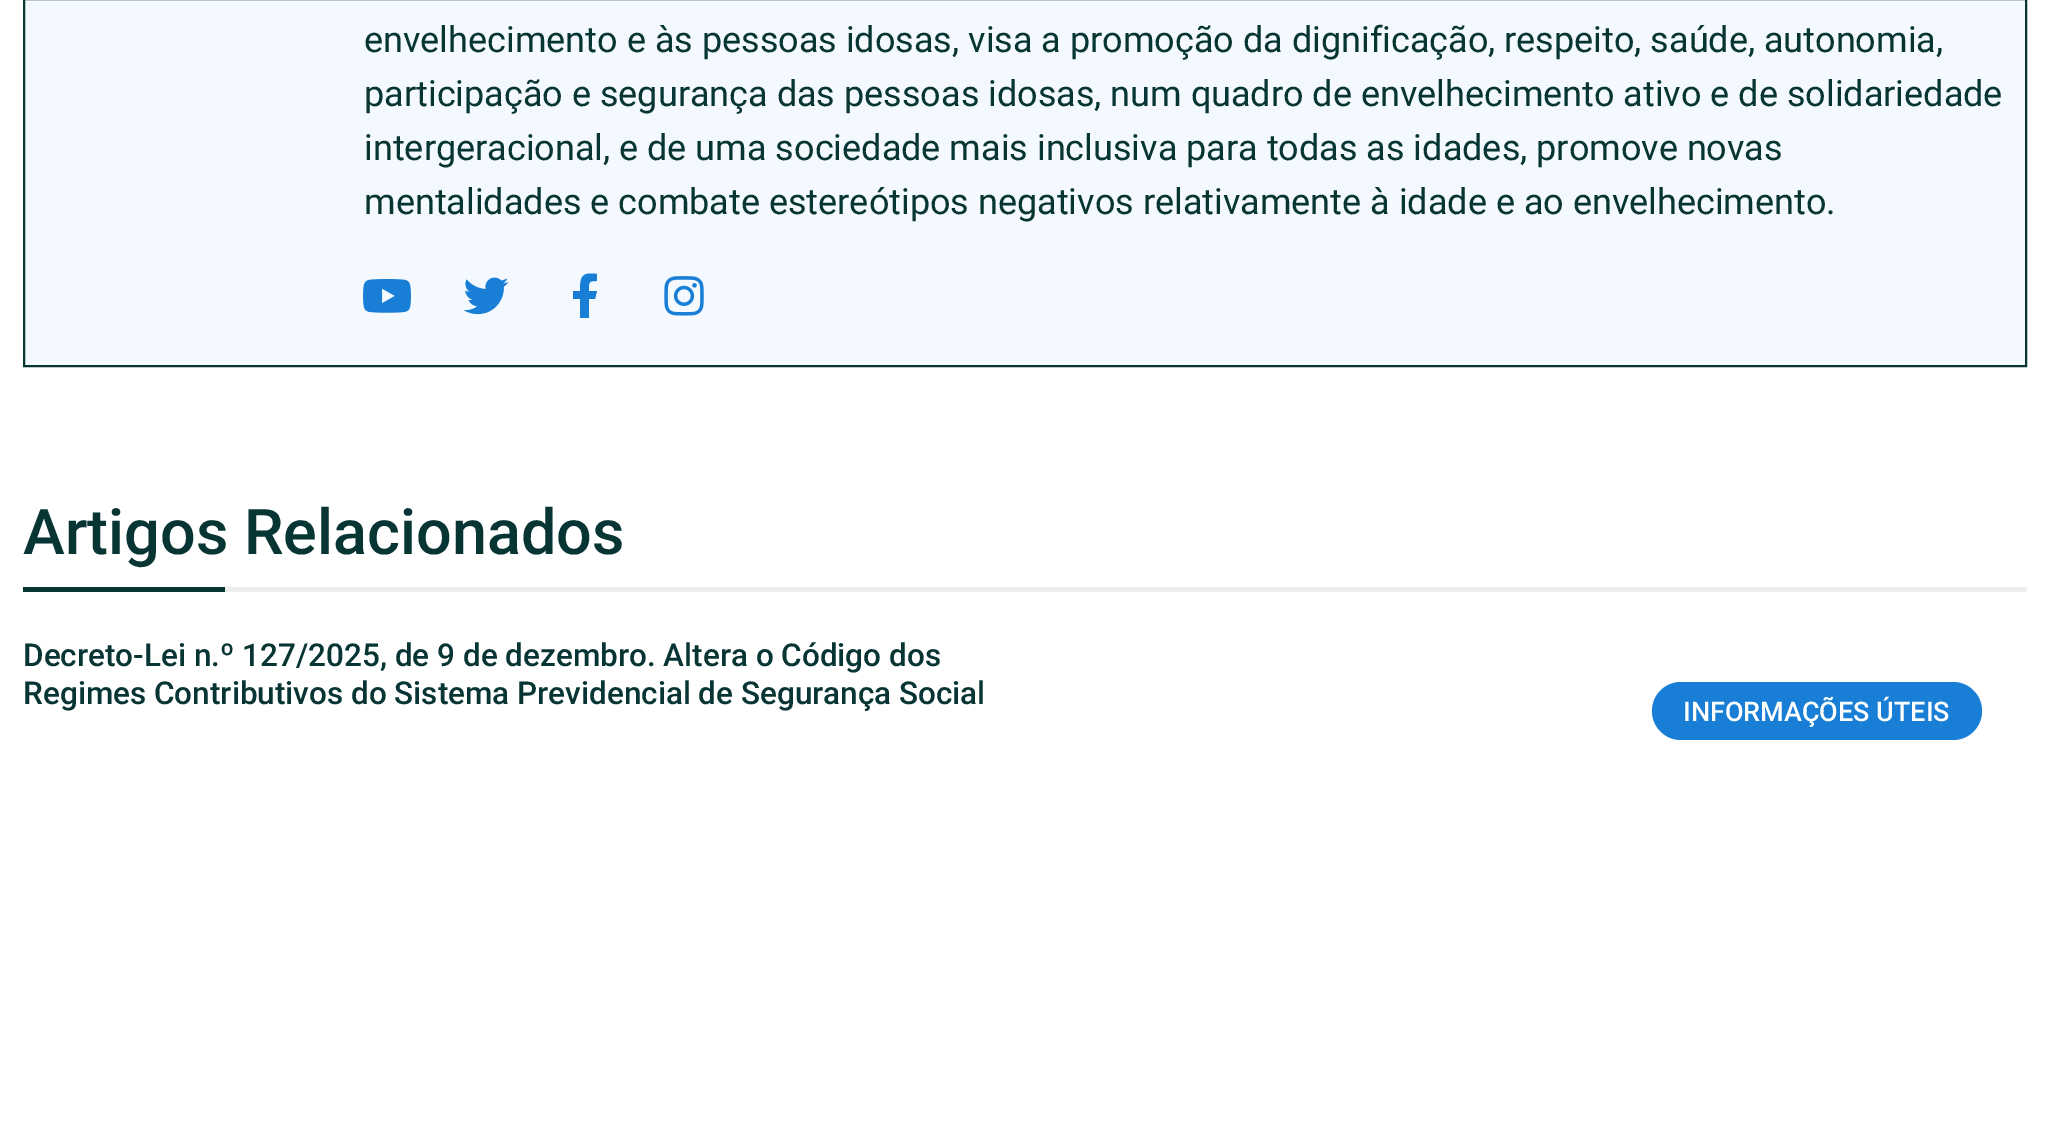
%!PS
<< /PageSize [2048 1130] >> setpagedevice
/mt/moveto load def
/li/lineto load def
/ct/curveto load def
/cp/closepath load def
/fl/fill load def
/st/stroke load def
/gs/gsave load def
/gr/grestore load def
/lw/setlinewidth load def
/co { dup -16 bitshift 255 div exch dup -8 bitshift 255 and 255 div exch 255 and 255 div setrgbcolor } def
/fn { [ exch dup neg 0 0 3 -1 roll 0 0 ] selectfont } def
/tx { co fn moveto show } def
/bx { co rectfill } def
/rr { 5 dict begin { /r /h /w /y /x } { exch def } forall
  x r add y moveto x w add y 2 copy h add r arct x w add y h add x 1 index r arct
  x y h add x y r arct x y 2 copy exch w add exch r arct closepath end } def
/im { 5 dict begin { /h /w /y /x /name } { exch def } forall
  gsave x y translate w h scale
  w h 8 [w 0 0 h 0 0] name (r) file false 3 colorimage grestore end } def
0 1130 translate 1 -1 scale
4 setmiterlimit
0 0 2048 1130 16#FFFFFF bx
16#F3F9FF co
24 -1 mt 2026 -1 li 2026 366 li 24 366 li cp gs fl gr
16#073534 co
2 lw
st
(media/1.raw) 363 279 48 34 im
(media/2.raw) 463 277 46 38 im
16#197ED6 co
595 299 mt 589 299 li 589 318 li 580 318 li 580 299 li 573 299 li 573 291 li 580 291 li 580 276 582 272 597 274 ct 597 281 li 588 281 589 282 589 291 ct 597 291 li cp fl
(media/3.raw) 664 276 40 40 im
225 587 1802 5 16#EEEEEE bx
23 587 202 5 16#073534 bx
16#197ED6 co
1652 682 330 58 29 rr fl
(envelhecimento e às pessoas idosas, visa a promoção da dignificação, respeito, saúde, autonomia,) 364 52 /Roboto-Regular 36 16#073534 tx
(participação e segurança das pessoas idosas, num quadro de envelhecimento ativo e de solidariedade) 364 106 /Roboto-Regular 36 16#073534 tx
(intergeracional, e de uma sociedade mais inclusiva para todas as idades, promove novas) 364 160 /Roboto-Regular 36 16#073534 tx
(mentalidades e combate estereótipos negativos relativamente à idade e ao envelhecimento.) 364 214 /Roboto-Regular 36 16#073534 tx
(Artigos Relacionados) 23 554 /Roboto-Medium 63 16#073534 tx
(Decreto-Lei n.º 127/2025, de 9 de dezembro. Altera o Código dos) 23 666 /Roboto-Medium 31.5 16#073534 tx
(Regimes Contributivos do Sistema Previdencial de Segurança Social) 23 704 /Roboto-Medium 31.5 16#073534 tx
(INFORMAÇÕES ÚTEIS) 1683 721 /Roboto-Medium 27 16#FFFFFF tx
showpage
